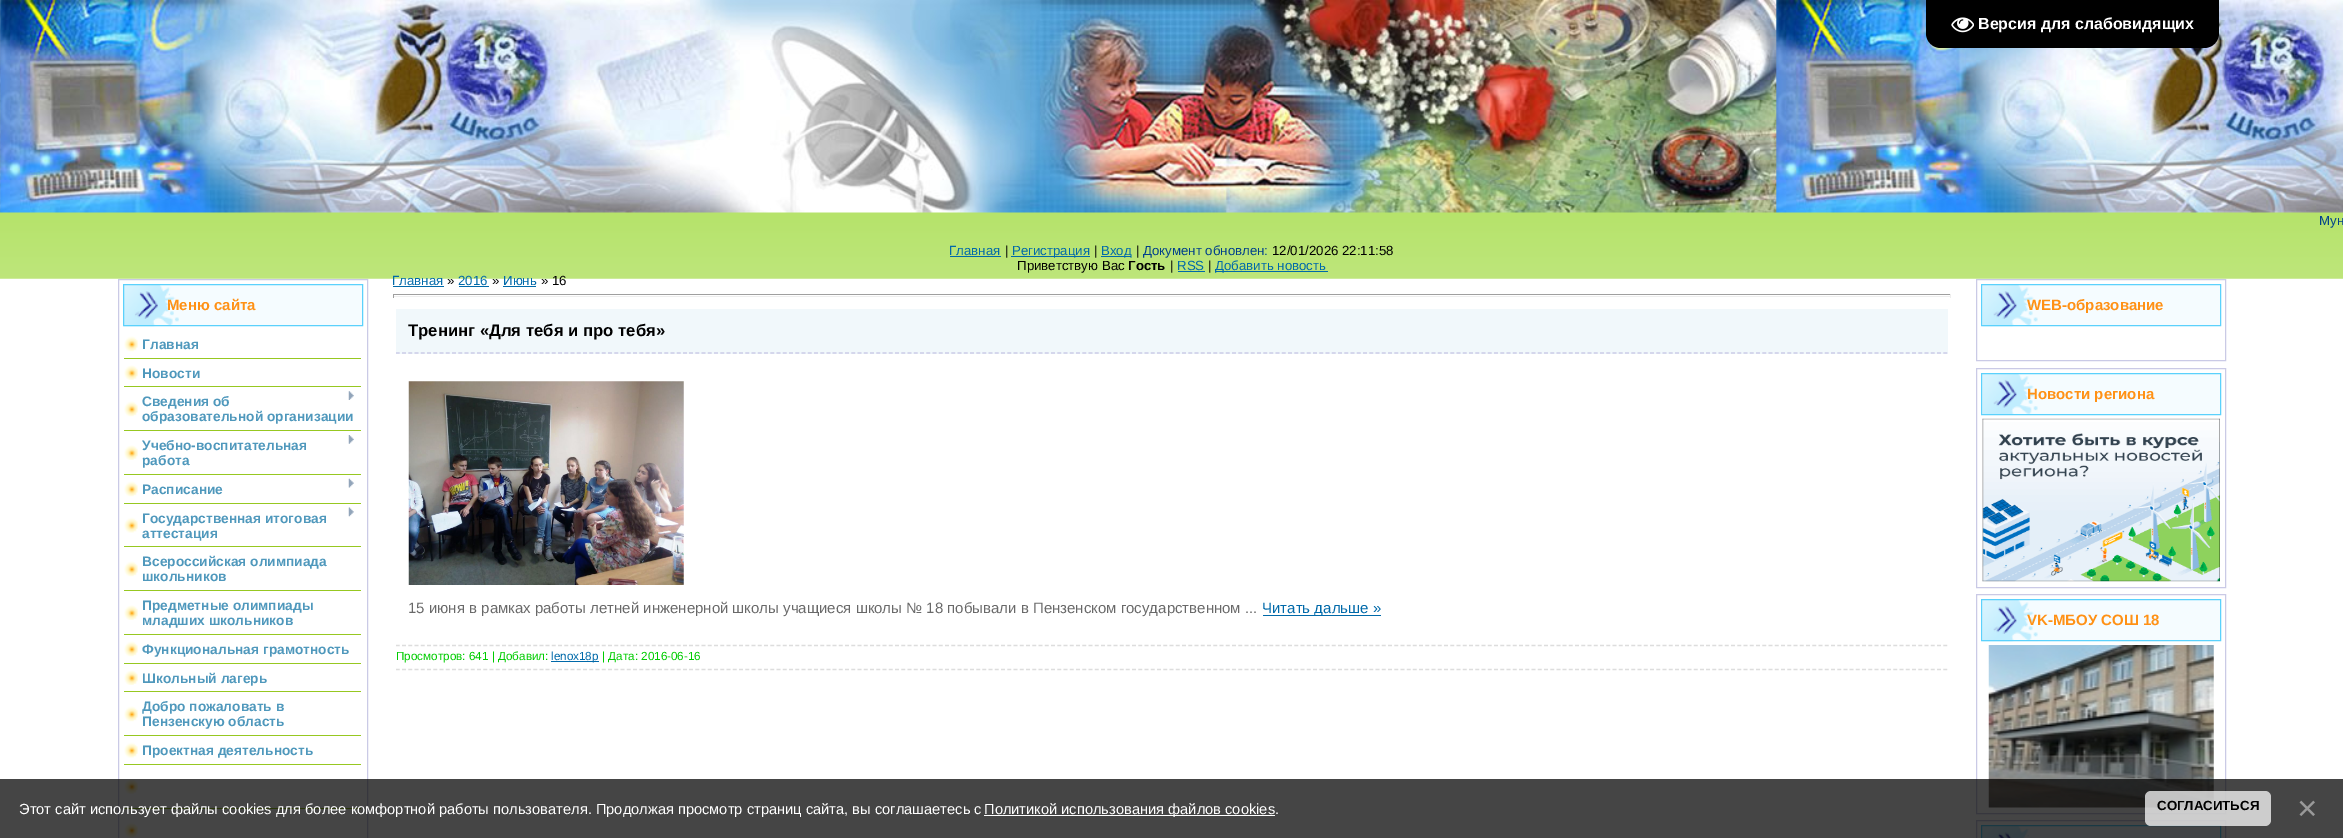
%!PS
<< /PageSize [2343 838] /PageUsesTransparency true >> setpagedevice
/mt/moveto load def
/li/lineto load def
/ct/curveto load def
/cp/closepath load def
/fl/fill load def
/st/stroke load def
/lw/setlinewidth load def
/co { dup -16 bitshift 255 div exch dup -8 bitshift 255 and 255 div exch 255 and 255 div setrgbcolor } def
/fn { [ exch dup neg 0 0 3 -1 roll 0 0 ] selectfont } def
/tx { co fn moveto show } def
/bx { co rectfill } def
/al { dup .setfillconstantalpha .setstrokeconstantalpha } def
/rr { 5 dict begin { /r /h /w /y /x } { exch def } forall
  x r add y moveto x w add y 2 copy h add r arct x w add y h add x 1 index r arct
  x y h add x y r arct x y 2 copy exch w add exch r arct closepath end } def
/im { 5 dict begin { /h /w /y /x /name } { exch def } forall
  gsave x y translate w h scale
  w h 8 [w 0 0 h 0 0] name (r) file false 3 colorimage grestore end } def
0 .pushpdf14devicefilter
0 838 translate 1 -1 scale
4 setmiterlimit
0 0 2343 838 16#FFFFFF bx
(media/2.raw) 0 212 2343 67 im
(media/3.raw) 0 0 2343 213 im
16#000000 co
1926 0 mt 2219 0 li 2219 33 li 2219 41.5 2212.5 48 2204 48 ct 1941 48 li 1932.5 48 1926 41.5 1926 33 ct cp fl
(media/1.raw) 1951 17 23 16 im
950 256 51 1 16#0069A9 bx
1011 256 79 1 16#0069A9 bx
1101 256 30 1 16#0069A9 bx
1178 271 27 1 16#0069A9 bx
1215 271 113 1 16#0069A9 bx
16#CACAE6 co
118.5 279.5 249 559 rectstroke
179 285 183 40 16#F5FCFF bx
(media/4.raw) 123 285 56 42 im
16#5BD1FC co
123.5 284.5 239 41 rectstroke
(media/5.raw) 124 336 14 16 im
124 358 237 1 16#97C821 bx
(media/6.raw) 124 365 14 15 im
124 386 237 1 16#97C821 bx
(media/5.raw) 124 401 14 16 im
124 430 237 1 16#97C821 bx
(media/7.raw) 348 391 6 9 im
(media/6.raw) 124 445 14 15 im
124 474 237 1 16#97C821 bx
(media/8.raw) 348 435 6 9 im
(media/5.raw) 124 481 14 16 im
124 503 237 1 16#97C821 bx
(media/9.raw) 348 478 6 10 im
(media/10.raw) 124 517 14 16 im
124 546 237 1 16#97C821 bx
(media/11.raw) 348 507 6 10 im
(media/5.raw) 124 561 14 16 im
124 590 237 1 16#97C821 bx
(media/6.raw) 124 605 14 15 im
124 634 237 1 16#97C821 bx
(media/5.raw) 124 641 14 16 im
124 663 237 1 16#97C821 bx
(media/6.raw) 124 670 14 15 im
124 691 237 1 16#97C821 bx
(media/5.raw) 124 706 14 16 im
124 735 237 1 16#97C821 bx
(media/10.raw) 124 742 14 16 im
124 764 237 1 16#97C821 bx
(media/12.raw) 124 779 14 15 im
124 808 237 1 16#97C821 bx
(media/10.raw) 124 822 14 16 im
393 286 51 1 16#0069A9 bx
459 286 30 1 16#0069A9 bx
503 286 33 1 16#0069A9 bx
393 294 1558 1 16#9F9F9F bx
1950 294 1 4 16#EEEEEE bx
393 296 1558 1 16#EEEEEE bx
393 294 1 4 16#9F9F9F bx
396 309 1552 45 16#F1F8FB bx
16#CBCBE6 co
1.2 lw
[3.75 2.49] 0 setdash
396 353 mt 1947.5 353 li st
(media/13.raw) 408 381 276 204 im
1263 615 118 1 16#0069A9 bx
16#DDDDDD co
396 645.5 mt 1947.5 645.5 li st
396 669.5 mt 1947.5 669.5 li st
551 661 48 1 16#0069A9 bx
16#CACAE6 co
1 lw
[] 0 setdash
1976.5 279.5 249 81 rectstroke
1982 285 238 40 16#F5FCFF bx
(media/14.raw) 1982 285 56 42 im
16#5BD1FC co
1981.5 284.5 239 41 rectstroke
16#CACAE6 co
1976.5 368.5 249 219 rectstroke
1982 374 238 40 16#F5FCFF bx
(media/15.raw) 1982 374 56 40 im
16#5BD1FC co
1981.5 373.5 239 41 rectstroke
(media/16.raw) 1982 418 238 164 im
16#CACAE6 co
1976.5 594.5 249 219 rectstroke
1982 600 238 40 16#F5FCFF bx
(media/17.raw) 1982 600 56 42 im
16#5BD1FC co
1981.5 599.5 239 41 rectstroke
(media/18.raw) 1988 645 226 163 im
16#CACAE6 co
1976.5 820.5 249 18 rectstroke
1982 826 238 12 16#F5FCFF bx
(media/19.raw) 1982 826 50 12 im
16#5BD1FC co
1981.5 825.5 239 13 rectstroke
0.73 al
0 779 2343 59 16#000000 bx
1 al
984 815 291 1 16#FFFFFF bx
0.73 al
2145 791 126 35 6 rr fl
1 al
(Версия для слабовидящих) 1978 29 /LiberationSans-Bold 16 16#FFFFFF tx
(Мун) 2319 225 /LiberationSans-Regular 13.25 16#00408B tx
(Главная) 949 255 /LiberationSans-Regular 13.25 16#0069A9 tx
(|) 1005 255 /LiberationSans-Regular 13.25 16#000000 tx
(Регистрация) 1012 255 /LiberationSans-Regular 13.25 16#0069A9 tx
(|) 1094 255 /LiberationSans-Regular 13.25 16#000000 tx
(Вход) 1101 255 /LiberationSans-Regular 13.25 16#0069A9 tx
(|) 1136 255 /LiberationSans-Regular 13.25 16#000000 tx
(Документ обновлен:) 1143 255 /LiberationSans-Regular 13.25 16#00408B tx
(12/01/2026 22:11:58) 1272 255 /LiberationSans-Regular 13.25 16#000000 tx
(Приветствую Вас) 1017 270 /LiberationSans-Regular 13.25 16#000000 tx
(Гость) 1128 270 /LiberationSans-Bold 13.25 16#000000 tx
(|) 1170 270 /LiberationSans-Regular 13.25 16#000000 tx
(RSS) 1177 270 /LiberationSans-Regular 13.25 16#0069A9 tx
(|) 1208 270 /LiberationSans-Regular 13.25 16#000000 tx
(Добавить новость) 1215 270 /LiberationSans-Regular 13.25 16#0069A9 tx
(Меню сайта) 167 310 /LiberationSans-Bold 15 16#FF9115 tx
(Главная) 142 349 /LiberationSans-Bold 13.75 16#4F98BC tx
(Новости) 142 378 /LiberationSans-Bold 13.75 16#4F98BC tx
(Сведения об) 142 406 /LiberationSans-Bold 13.75 16#4F98BC tx
(образовательной организации) 142 421 /LiberationSans-Bold 13.75 16#4F98BC tx
(Учебно-воспитательная) 142 450 /LiberationSans-Bold 13.75 16#4F98BC tx
(работа) 142 465 /LiberationSans-Bold 13.75 16#4F98BC tx
(Расписание) 142 494 /LiberationSans-Bold 13.75 16#4F98BC tx
(Государственная итоговая) 142 523 /LiberationSans-Bold 13.75 16#4F98BC tx
(аттестация) 142 538 /LiberationSans-Bold 13.75 16#4F98BC tx
(Всероссийская олимпиада) 142 566 /LiberationSans-Bold 13.75 16#4F98BC tx
(школьников) 142 581 /LiberationSans-Bold 13.75 16#4F98BC tx
(Предметные олимпиады) 142 610 /LiberationSans-Bold 13.75 16#4F98BC tx
(младших школьников) 142 625 /LiberationSans-Bold 13.75 16#4F98BC tx
(Функциональная грамотность) 142 654 /LiberationSans-Bold 13.75 16#4F98BC tx
(Школьный лагерь) 142 683 /LiberationSans-Bold 13.75 16#4F98BC tx
(Добро пожаловать в) 142 711 /LiberationSans-Bold 13.75 16#4F98BC tx
(Пензенскую область) 142 726 /LiberationSans-Bold 13.75 16#4F98BC tx
(Проектная деятельность) 142 755 /LiberationSans-Bold 13.75 16#4F98BC tx
(Главная) 392 285 /LiberationSans-Regular 13.25 16#0069A9 tx
(») 447 285 /LiberationSans-Regular 13.25 16#000000 tx
(2016) 458 285 /LiberationSans-Regular 13.25 16#0069A9 tx
(») 492 285 /LiberationSans-Regular 13.25 16#000000 tx
(Июнь) 503 285 /LiberationSans-Regular 13.25 16#0069A9 tx
(» 16) 541 285 /LiberationSans-Regular 13.25 16#000000 tx
(Тренинг «Для тебя и про тебя») 408 336 /LiberationSans-Bold 16.7 16#000000 tx
(15 июня в рамках работы летней инженерной школы учащиеся школы № 18 побывали в Пензенском государственном ...) 408 613 /LiberationSans-Regular 15 16#696969 tx
(Читать дальше ») 1262 613 /LiberationSans-Regular 15 16#0069A9 tx
(Просмотров: 641 | Добавил:) 396 660 /LiberationSans-Regular 11.7 16#00CC00 tx
(lenox18p) 551 660 /LiberationSans-Regular 11.7 16#0069A9 tx
(| Дата: 2016-06-16) 602 660 /LiberationSans-Regular 11.7 16#00CC00 tx
(WEB-образование) 2027 310 /LiberationSans-Bold 15 16#FF9115 tx
(Новости региона) 2027 399 /LiberationSans-Bold 15 16#FF9115 tx
(VK-МБОУ СОШ 18) 2027 625 /LiberationSans-Bold 15 16#FF9115 tx
(Этот сайт использует файлы cookies для более комфортной работы пользователя. Продолжая просмотр страниц сайта, вы соглашаетесь с) 19 814 /LiberationSans-Regular 14.67 16#FFFFFF tx
(Политикой использования файлов cookies) 984 814 /LiberationSans-Regular 14.67 16#FFFFFF tx
(.) 1275 814 /LiberationSans-Regular 14.67 16#FFFFFF tx
(СОГЛАСИТЬСЯ) 2157 810 /LiberationSans-Bold 13.25 16#000000 tx
(×) 2297 820 /LiberationSans-Regular 35 16#999999 tx
.poppdf14devicefilter showpage
